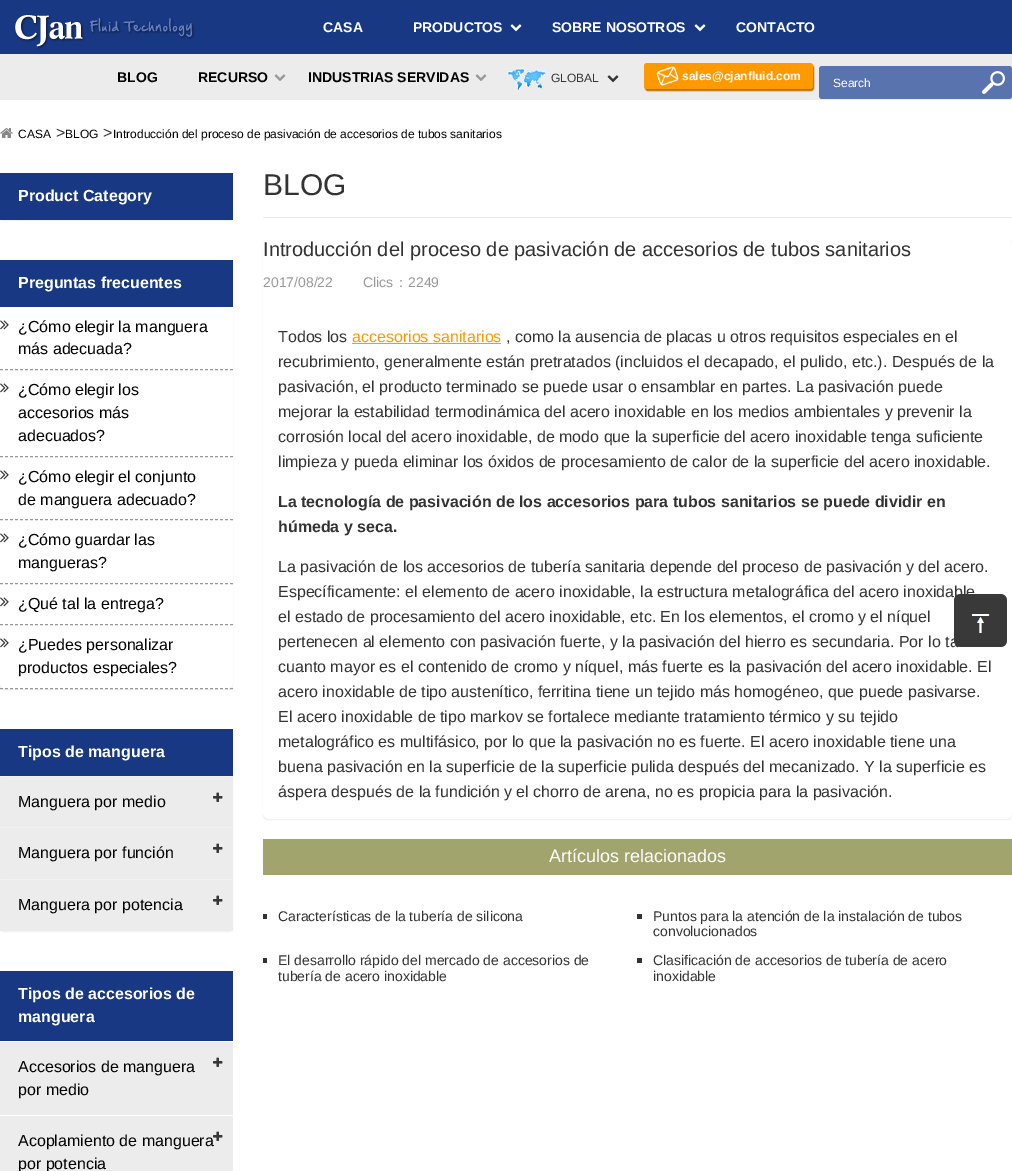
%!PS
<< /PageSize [1012 1171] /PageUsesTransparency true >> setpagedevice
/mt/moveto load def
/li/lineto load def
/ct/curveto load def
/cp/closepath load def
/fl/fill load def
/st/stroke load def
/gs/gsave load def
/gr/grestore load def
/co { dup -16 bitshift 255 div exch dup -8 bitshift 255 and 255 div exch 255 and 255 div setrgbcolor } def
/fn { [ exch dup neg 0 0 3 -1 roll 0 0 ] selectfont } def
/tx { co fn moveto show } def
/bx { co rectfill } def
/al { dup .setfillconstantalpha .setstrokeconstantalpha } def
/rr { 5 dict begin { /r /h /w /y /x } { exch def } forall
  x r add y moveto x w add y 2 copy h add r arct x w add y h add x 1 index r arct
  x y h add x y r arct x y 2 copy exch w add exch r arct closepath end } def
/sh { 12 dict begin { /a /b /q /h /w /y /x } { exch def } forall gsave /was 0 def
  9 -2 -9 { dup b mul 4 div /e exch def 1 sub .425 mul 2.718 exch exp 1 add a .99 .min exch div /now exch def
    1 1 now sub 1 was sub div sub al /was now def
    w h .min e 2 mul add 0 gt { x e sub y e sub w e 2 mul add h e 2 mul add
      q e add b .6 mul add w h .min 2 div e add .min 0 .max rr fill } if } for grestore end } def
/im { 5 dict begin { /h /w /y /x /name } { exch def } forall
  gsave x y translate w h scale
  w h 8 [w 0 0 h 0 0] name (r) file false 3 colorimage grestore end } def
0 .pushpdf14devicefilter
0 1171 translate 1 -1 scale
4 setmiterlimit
0 0 1012 1171 16#FFFFFF bx
0 0 1012 54 16#183883 bx
(media/1.raw) 14 14 181 35 im
(media/2.raw) 510 24 12 8 im
(media/2.raw) 694 24 12 8 im
0 54 1012 46 16#ECECEC bx
16#5973AF co
819 66 193 33 3 rr fl
(media/3.raw) 982 71 23 23 im
(media/4.raw) 274 74 12 7 im
(media/4.raw) 475 74 12 7 im
(media/5.raw) 507 68 39 23 im
(media/6.raw) 607 75 12 8 im
16#B77004 co
645 65 169 26 3 .5 1 sh
16#FF9900 co
644 63 169 26 3 rr fl
(media/7.raw) 656 66 23 20 im
(media/8.raw) 0 128 13 10 im
16#000000 co
0 174 233 47 4 .5 .05 sh
0 173 233 47 16#183883 bx
gs
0 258 mt 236 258 li 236 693 li 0 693 li cp 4 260 mt 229 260 li 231 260 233 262 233 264 ct 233 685 li 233 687 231 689 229 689 ct 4 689 li 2 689 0 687 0 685 ct 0 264 li 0 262 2 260 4 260 ct cp eoclip newpath
16#000000 co
0 261 233 429 4 .5 .05 sh
gr
0 260 233 47 16#183883 bx
(media/9.raw) 0 320 9 10 im
16#999999 co
[3 2] 0 setdash
0 369.5 mt 233 369.5 li st
(media/9.raw) 0 383 9 10 im
0 456.5 mt 233 456.5 li st
(media/9.raw) 0 470 9 10 im
0 519.5 mt 233 519.5 li st
(media/9.raw) 0 533 9 10 im
0 583.5 mt 233 583.5 li st
(media/9.raw) 0 597 9 10 im
0 624.5 mt 233 624.5 li st
(media/9.raw) 0 638 9 10 im
0 688.5 mt 233 688.5 li st
16#000000 co
0 730 233 202 4 .5 .05 sh
0 729 233 47 16#183883 bx
0 777 233 50 16#ECECEC bx
(media/10.raw) 213 792 10 10 im
0 828 233 51 16#ECECEC bx
(media/10.raw) 213 843 10 10 im
0 880 233 51 16#ECECEC bx
(media/10.raw) 213 895 10 10 im
0 971 233 70 16#183883 bx
0 1042 233 73 16#ECECEC bx
(media/10.raw) 213 1057 10 10 im
0 1116 233 55 16#ECECEC bx
263 217 749 1 16#ECECEC bx
gs
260 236 mt 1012 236 li 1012 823 li 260 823 li cp 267 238 mt 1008 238 li 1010 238 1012 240 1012 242 ct 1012 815 li 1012 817 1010 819 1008 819 ct 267 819 li 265 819 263 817 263 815 ct 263 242 li 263 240 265 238 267 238 ct cp eoclip newpath
16#000000 co
263 239 749 581 4 .5 .05 sh
gr
352 343 149 1 16#FF9900 bx
263 839 749 36 16#A1A46D bx
263 914 4 5 16#333333 bx
637 914 5 5 16#333333 bx
263 958 4 5 16#333333 bx
637 958 5 5 16#333333 bx
(CASA) 323 32 /LiberationSans-Bold 14 16#FFFFFF tx
(PRODUCTOS) 413 32 /LiberationSans-Bold 14 16#FFFFFF tx
(SOBRE NOSOTROS) 552 32 /LiberationSans-Bold 14 16#FFFFFF tx
(CONTACTO) 736 32 /LiberationSans-Bold 14 16#FFFFFF tx
(Search) 833 87 /LiberationSans-Regular 12 16#FFFFFF tx
(BLOG) 117 82 /LiberationSans-Bold 14 16#000000 tx
(RECURSO) 198 82 /LiberationSans-Bold 14 16#000000 tx
(INDUSTRIAS SERVIDAS) 308 82 /LiberationSans-Bold 14 16#000000 tx
(GLOBAL) 551 82 /LiberationSans-Regular 12 16#333333 tx
(sales@cjanfluid.com) 682 80 /LiberationSans-Bold 12 16#FFFFFF tx
(CASA) 18 138 /LiberationSans-Regular 12 16#000000 tx
(>) 56 138 /LiberationSans-Regular 16 16#333333 tx
(BLOG) 65 138 /LiberationSans-Regular 12 16#000000 tx
(>) 103 138 /LiberationSans-Regular 16 16#333333 tx
(Introducción del proceso de pasivación de accesorios de tubos sanitarios) 113 138 /LiberationSans-Regular 12 16#000000 tx
(Product Category) 18 201 /LiberationSans-Bold 16 16#FFFFFF tx
(Preguntas frecuentes) 18 288 /LiberationSans-Bold 16 16#FFFFFF tx
(¿Cómo elegir la manguera) 18 332 /LiberationSans-Regular 16 16#000000 tx
(más adecuada?) 18 354 /LiberationSans-Regular 16 16#000000 tx
(¿Cómo elegir los) 18 395 /LiberationSans-Regular 16 16#000000 tx
(accesorios más) 18 418 /LiberationSans-Regular 16 16#000000 tx
(adecuados?) 18 441 /LiberationSans-Regular 16 16#000000 tx
(¿Cómo elegir el conjunto) 18 482 /LiberationSans-Regular 16 16#000000 tx
(de manguera adecuado?) 18 505 /LiberationSans-Regular 16 16#000000 tx
(¿Cómo guardar las) 18 545 /LiberationSans-Regular 16 16#000000 tx
(mangueras?) 18 568 /LiberationSans-Regular 16 16#000000 tx
(¿Qué tal la entrega?) 18 609 /LiberationSans-Regular 16 16#000000 tx
(¿Puedes personalizar) 18 650 /LiberationSans-Regular 16 16#000000 tx
(productos especiales?) 18 673 /LiberationSans-Regular 16 16#000000 tx
(Tipos de manguera) 18 757 /LiberationSans-Bold 16 16#FFFFFF tx
(Manguera por medio) 18 807 /LiberationSans-Regular 16 16#000000 tx
(Manguera por función) 18 858 /LiberationSans-Regular 16 16#000000 tx
(Manguera por potencia) 18 910 /LiberationSans-Regular 16 16#000000 tx
(Tipos de accesorios de) 18 999 /LiberationSans-Bold 16 16#FFFFFF tx
(manguera) 18 1022 /LiberationSans-Bold 16 16#FFFFFF tx
(Accesorios de manguera) 18 1072 /LiberationSans-Regular 16 16#000000 tx
(por medio) 18 1095 /LiberationSans-Regular 16 16#000000 tx
(Acoplamiento de manguera) 18 1146 /LiberationSans-Regular 16 16#000000 tx
(por potencia) 18 1169 /LiberationSans-Regular 16 16#000000 tx
(media/10.raw) 213 1131 10 10 im
(BLOG) 263 195 /LiberationSans-Regular 30 16#333333 tx
(Introducción del proceso de pasivación de accesorios de tubos sanitarios) 263 256 /LiberationSans-Regular 20 16#333333 tx
(2017/08/22) 263 287 /LiberationSans-Regular 14 16#999999 tx
(Clics) 363 287 /LiberationSans-Regular 14 16#999999 tx
(：) 394 287 /WenQuanYiZenHei-Medium 14 16#999999 tx
(2249) 408 287 /LiberationSans-Regular 14 16#999999 tx
(Todos los) 278 342 /LiberationSans-Regular 16 16#333333 tx
(accesorios sanitarios) 352 342 /LiberationSans-Regular 16 16#FF9900 tx
(, como la ausencia de placas u otros requisitos especiales en el) 506 342 /LiberationSans-Regular 16 16#333333 tx
(recubrimiento, generalmente están pretratados \(incluidos el decapado, el pulido, etc.\). Después de la) 278 367 /LiberationSans-Regular 16 16#333333 tx
(pasivación, el producto terminado se puede usar o ensamblar en partes. La pasivación puede) 278 392 /LiberationSans-Regular 16 16#333333 tx
(mejorar la estabilidad termodinámica del acero inoxidable en los medios ambientales y prevenir la) 278 417 /LiberationSans-Regular 16 16#333333 tx
(corrosión local del acero inoxidable, de modo que la superficie del acero inoxidable tenga suficiente) 278 442 /LiberationSans-Regular 16 16#333333 tx
(limpieza y pueda eliminar los óxidos de procesamiento de calor de la superficie del acero inoxidable.) 278 467 /LiberationSans-Regular 16 16#333333 tx
(La tecnología de pasivación de los accesorios para tubos sanitarios se puede dividir en) 278 507 /LiberationSans-Bold 16 16#333333 tx
(húmeda y seca.) 278 532 /LiberationSans-Bold 16 16#333333 tx
(La pasivación de los accesorios de tubería sanitaria depende del proceso de pasivación y del acero.) 278 572 /LiberationSans-Regular 16 16#333333 tx
(Específicamente: el elemento de acero inoxidable, la estructura metalográfica del acero inoxidable) 278 597 /LiberationSans-Regular 16 16#333333 tx
(el estado de procesamiento del acero inoxidable, etc. En los elementos, el cromo y el níquel) 278 622 /LiberationSans-Regular 16 16#333333 tx
(pertenecen al elemento con pasivación fuerte, y la pasivación del hierro es secundaria. Por lo ta) 278 647 /LiberationSans-Regular 16 16#333333 tx
(cuanto mayor es el contenido de cromo y níquel, más fuerte es la pasivación del acero inoxidable. El) 278 672 /LiberationSans-Regular 16 16#333333 tx
(acero inoxidable de tipo austenítico, ferritina tiene un tejido más homogéneo, que puede pasivarse.) 278 697 /LiberationSans-Regular 16 16#333333 tx
(El acero inoxidable de tipo markov se fortalece mediante tratamiento térmico y su tejido) 278 722 /LiberationSans-Regular 16 16#333333 tx
(metalográfico es multifásico, por lo que la pasivación no es fuerte. El acero inoxidable tiene una) 278 747 /LiberationSans-Regular 16 16#333333 tx
(buena pasivación en la superficie de la superficie pulida después del mecanizado. Y la superficie es) 278 772 /LiberationSans-Regular 16 16#333333 tx
(áspera después de la fundición y el chorro de arena, no es propicia para la pasivación.) 278 797 /LiberationSans-Regular 16 16#333333 tx
(Artículos relacionados) 549 862 /LiberationSans-Regular 18 16#FFFFFF tx
(Características de la tubería de silicona) 278 921 /LiberationSans-Regular 14 16#333333 tx
(Puntos para la atención de la instalación de tubos) 653 921 /LiberationSans-Regular 14 16#333333 tx
(convolucionados) 653 936 /LiberationSans-Regular 14 16#333333 tx
(El desarrollo rápido del mercado de accesorios de) 278 965 /LiberationSans-Regular 14 16#333333 tx
(tubería de acero inoxidable) 278 981 /LiberationSans-Regular 14 16#333333 tx
(Clasificación de accesorios de tubería de acero) 653 965 /LiberationSans-Regular 14 16#333333 tx
(inoxidable) 653 981 /LiberationSans-Regular 14 16#333333 tx
(media/11.raw) 954 594 53 53 im
.poppdf14devicefilter showpage
